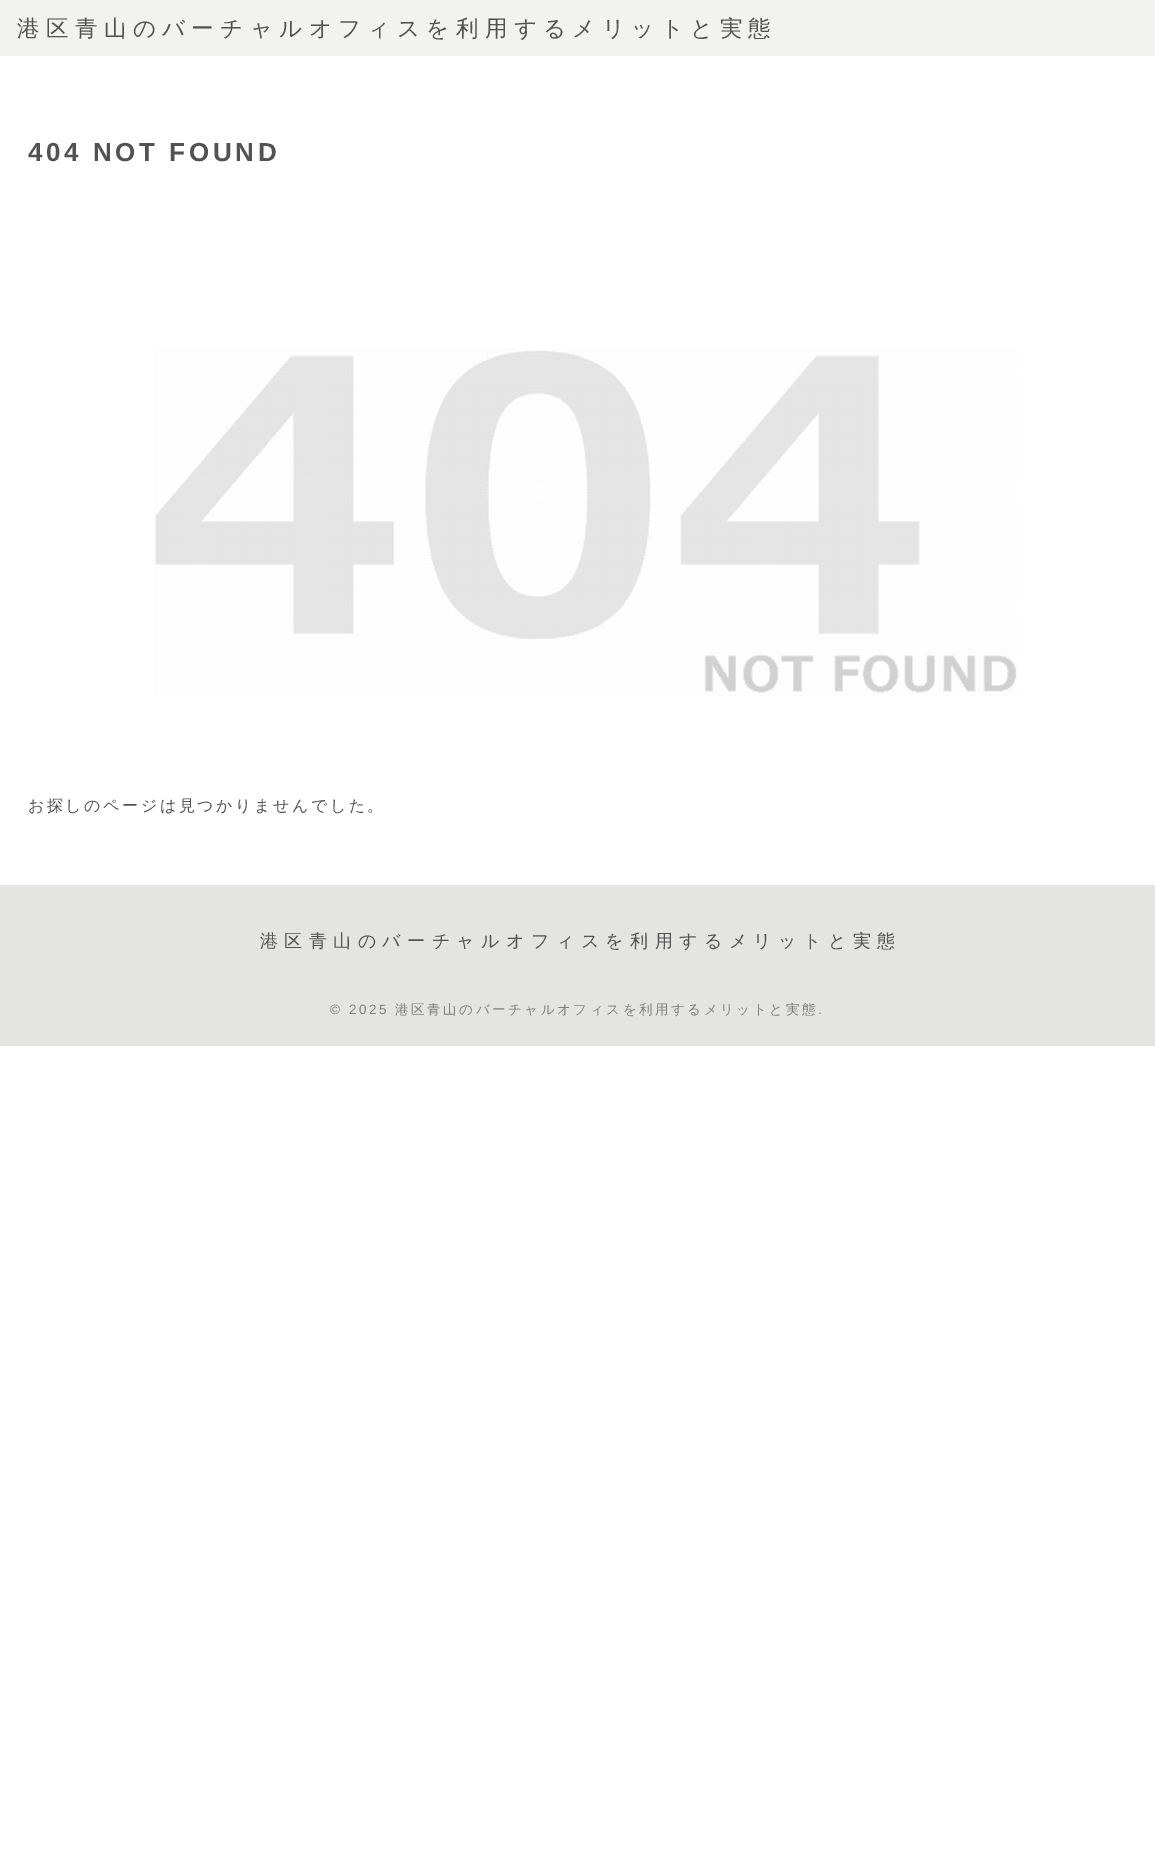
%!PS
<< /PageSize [1155 1870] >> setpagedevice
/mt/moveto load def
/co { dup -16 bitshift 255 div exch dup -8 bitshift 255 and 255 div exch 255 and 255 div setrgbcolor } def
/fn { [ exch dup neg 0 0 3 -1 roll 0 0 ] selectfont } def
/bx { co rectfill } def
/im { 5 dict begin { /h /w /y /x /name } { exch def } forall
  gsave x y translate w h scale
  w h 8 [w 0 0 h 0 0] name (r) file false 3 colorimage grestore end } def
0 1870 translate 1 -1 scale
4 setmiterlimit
0 0 1155 1870 16#FFFFFF bx
0 0 1155 56 16#F2F2F1 bx
(media/1.raw) 154 349 863 347 im
0 885 1155 161 16#E4E4E3 bx
/WenQuanYiZenHei-Medium 22.5 fn
16#535252 co
17 36 mt 6.4 0 (港区青山のバーチャルオフィスを利用するメリットと実態) ashow
/LiberationSans-Bold 26 fn
28 161 mt 3.6 0 (404 NOT FOUND) ashow
/WenQuanYiZenHei-Medium 16 fn
28 811 mt 2.55 0 (お探しのページは見つかりませんでした。) ashow
/WenQuanYiZenHei-Medium 18 fn
260 947 mt 6.4 0 (港区青山のバーチャルオフィスを利用するメリットと実態) ashow
/LiberationSans-Regular 13.5 fn
16#7F7E7E co
330 1014 mt 2.55 0 (© 2025) ashow
/WenQuanYiZenHei-Medium 13.5 fn
395 1014 mt 2.55 0 (港区青山のバーチャルオフィスを利用するメリットと実態) ashow
/LiberationSans-Regular 13.5 fn
818 1014 mt 2.55 0 (.) ashow
showpage
